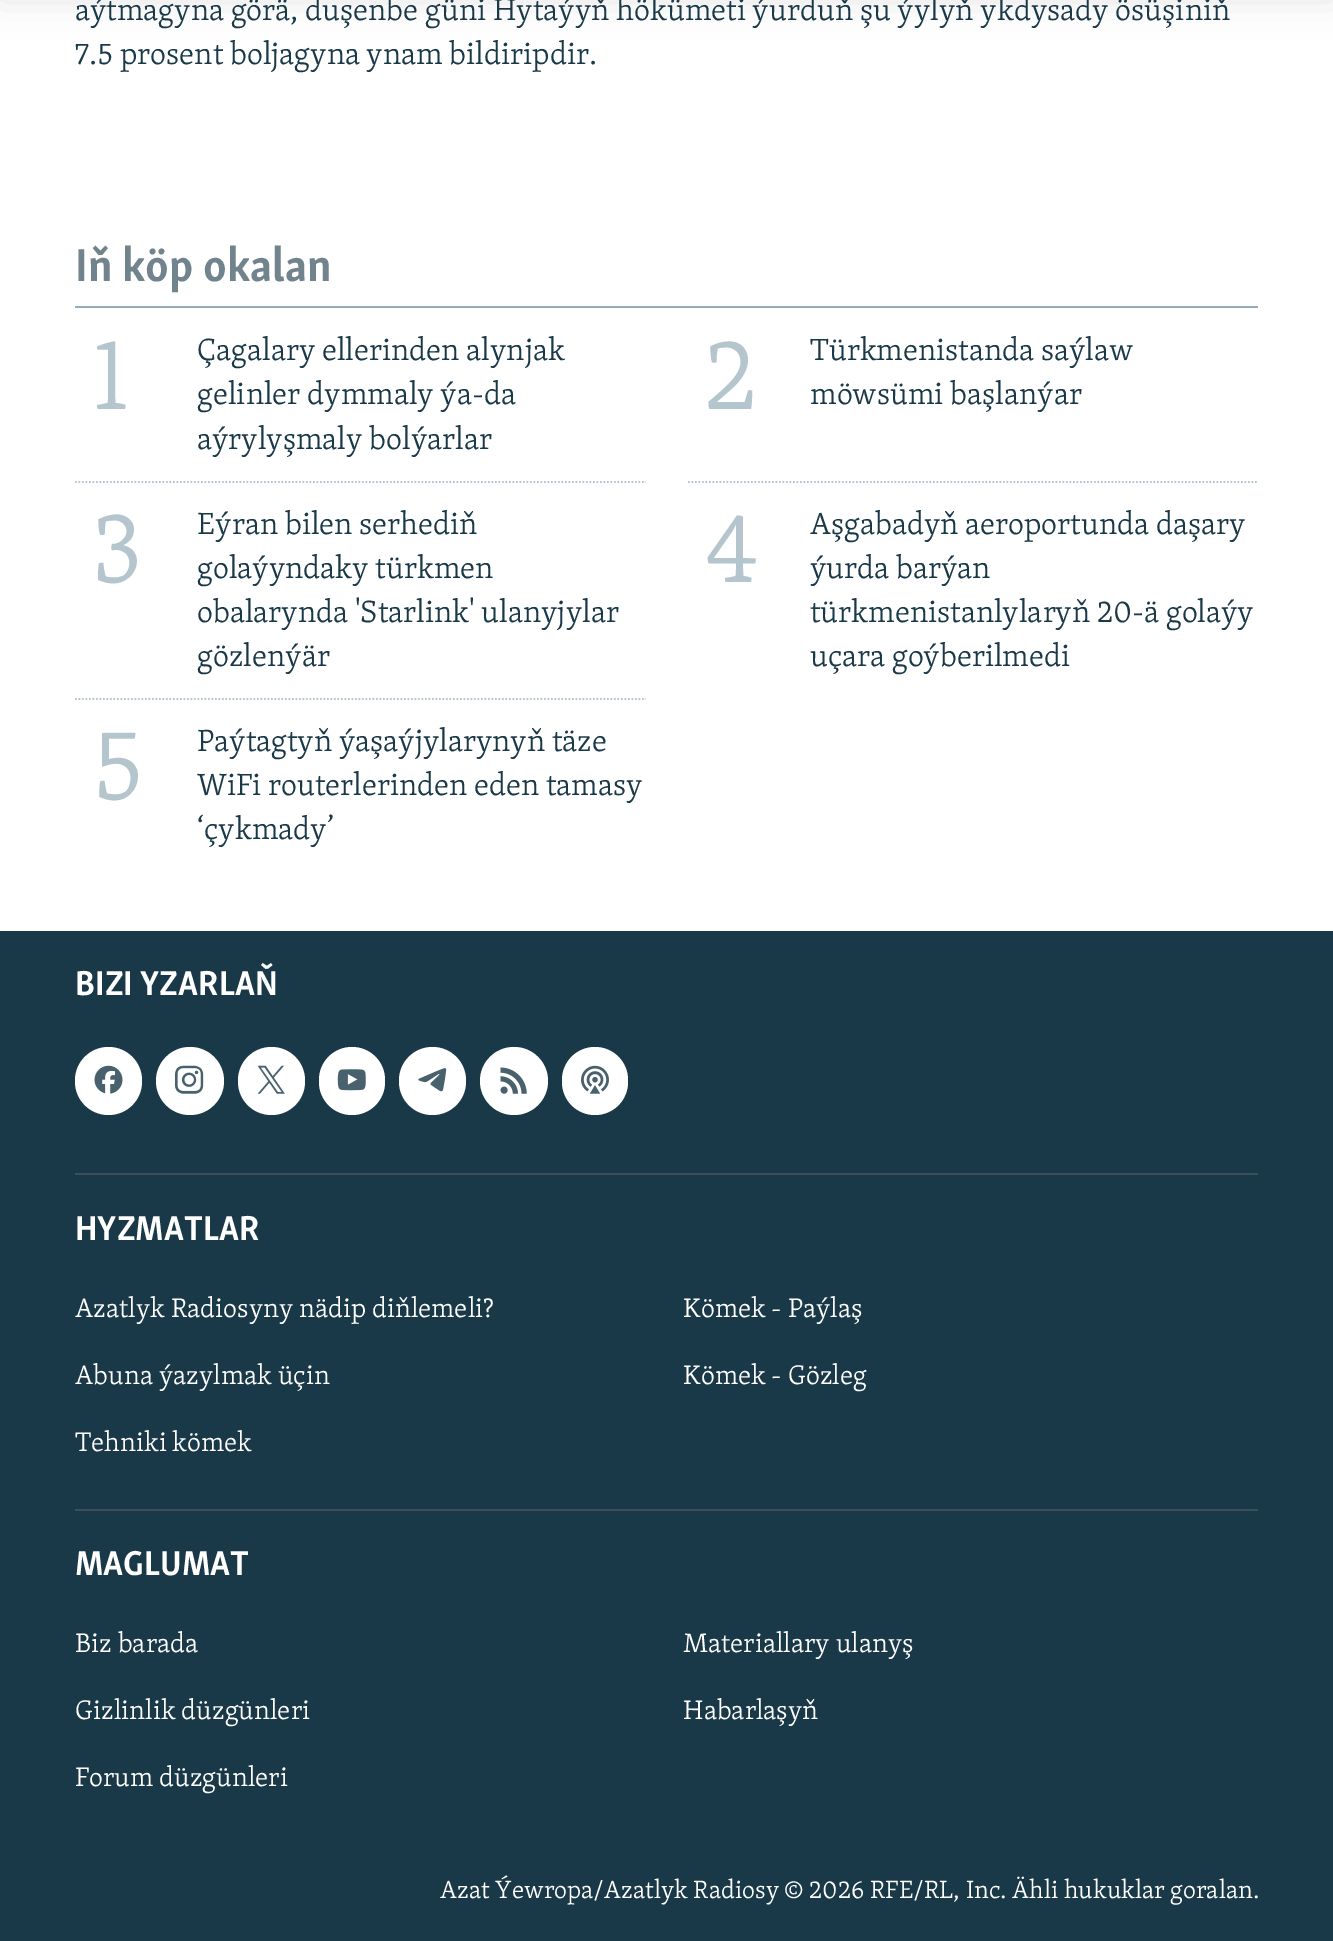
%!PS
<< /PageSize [1333 1941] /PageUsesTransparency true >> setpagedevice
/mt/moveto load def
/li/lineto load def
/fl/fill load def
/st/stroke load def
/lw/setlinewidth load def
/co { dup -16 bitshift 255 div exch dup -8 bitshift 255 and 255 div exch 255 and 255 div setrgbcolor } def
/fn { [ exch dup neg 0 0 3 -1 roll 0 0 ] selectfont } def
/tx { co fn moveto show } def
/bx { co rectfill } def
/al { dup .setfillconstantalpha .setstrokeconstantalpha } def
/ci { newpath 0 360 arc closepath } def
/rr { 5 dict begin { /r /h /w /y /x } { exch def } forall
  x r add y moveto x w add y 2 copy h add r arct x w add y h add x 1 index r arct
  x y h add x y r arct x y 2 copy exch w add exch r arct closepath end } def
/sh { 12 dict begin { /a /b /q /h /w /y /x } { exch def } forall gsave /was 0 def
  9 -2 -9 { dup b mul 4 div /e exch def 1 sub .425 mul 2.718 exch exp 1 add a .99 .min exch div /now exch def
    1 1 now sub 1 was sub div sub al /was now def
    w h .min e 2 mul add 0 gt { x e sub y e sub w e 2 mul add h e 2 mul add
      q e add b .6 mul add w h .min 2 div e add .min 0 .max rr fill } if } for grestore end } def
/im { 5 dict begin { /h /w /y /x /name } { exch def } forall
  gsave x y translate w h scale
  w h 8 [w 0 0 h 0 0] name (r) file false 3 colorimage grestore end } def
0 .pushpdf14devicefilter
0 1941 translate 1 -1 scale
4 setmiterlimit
0 0 1333 1941 16#FFFFFF bx
16#000000 co
0 -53 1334 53 0 17.5 .1 sh
75 306 1183 2 16#95ADB9 bx
16#B4C5CD co
1.8 lw
[1.75 1.75] 0 setdash
75 482 mt 646 482 li st
688 482 mt 1258 482 li st
75 699 mt 646 699 li st
0 931 1333 1010 16#1A3948 bx
16#FFFFFF co
75 1047 67 68 33.5 rr fl
(media/1.raw) 94 1065 29 29 im
190 1081 34 ci fl
(media/2.raw) 175 1065 29 29 im
238 1047 67 68 33.5 rr fl
(media/3.raw) 257 1065 28 29 im
319 1047 66 68 33 rr fl
(media/4.raw) 337 1069 29 22 im
399 1047 67 68 33.5 rr fl
(media/5.raw) 418 1068 29 24 im
514 1081 34 ci fl
(media/6.raw) 500 1067 27 27 im
562 1047 66 68 33 rr fl
(media/7.raw) 581 1065 28 29 im
75 1173 1183 2 16#3E4F57 bx
75 1509 1183 2 16#3E4F57 bx
(aýtmagyna görä, duşenbe güni Hytaýyň hökümeti ýurduň şu ýylyň ykdysady ösüşiniň) 75 20 /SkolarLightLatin-Light 31.5 16#1A3948 tx
(7.5 prosent boljagyna ynam bildiripdir.) 75 64 /SkolarLightLatin-Light 31.5 16#1A3948 tx
(Iň köp okalan) 75 281 /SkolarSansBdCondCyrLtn-Bold 47.25 16#71838D tx
(1) 91 409 /SkolarLightLatin-Light 104 16#B4C5CD tx
(Çagalary ellerinden alynjak) 197 360 /SkolarLightLatin-Light 31.5 16#1A3948 tx
(gelinler dymmaly ýa-da) 197 404 /SkolarLightLatin-Light 31.5 16#1A3948 tx
(aýrylyşmaly bolýarlar) 197 449 /SkolarLightLatin-Light 31.5 16#1A3948 tx
(2) 704 409 /SkolarLightLatin-Light 104 16#B4C5CD tx
(Türkmenistanda saýlaw) 810 360 /SkolarLightLatin-Light 31.5 16#1A3948 tx
(möwsümi başlanýar) 810 404 /SkolarLightLatin-Light 31.5 16#1A3948 tx
(3) 91 582 /SkolarLightLatin-Light 104 16#B4C5CD tx
(Eýran bilen serhediň) 197 534 /SkolarLightLatin-Light 31.5 16#1A3948 tx
(golaýyndaky türkmen) 197 578 /SkolarLightLatin-Light 31.5 16#1A3948 tx
(obalarynda 'Starlink' ulanyjylar) 197 622 /SkolarLightLatin-Light 31.5 16#1A3948 tx
(gözlenýär) 197 666 /SkolarLightLatin-Light 31.5 16#1A3948 tx
(4) 704 582 /SkolarLightLatin-Light 104 16#B4C5CD tx
(Aşgabadyň aeroportunda daşary) 810 534 /SkolarLightLatin-Light 31.5 16#1A3948 tx
(ýurda barýan) 810 578 /SkolarLightLatin-Light 31.5 16#1A3948 tx
(türkmenistanlylaryň 20-ä golaýy) 810 622 /SkolarLightLatin-Light 31.5 16#1A3948 tx
(uçara goýberilmedi) 810 666 /SkolarLightLatin-Light 31.5 16#1A3948 tx
(5) 91 799 /SkolarLightLatin-Light 104 16#B4C5CD tx
(Paýtagtyň ýaşaýjylarynyň täze) 197 751 /SkolarLightLatin-Light 31.5 16#1A3948 tx
(WiFi routerlerinden eden tamasy) 197 795 /SkolarLightLatin-Light 31.5 16#1A3948 tx
(‘çykmady’) 197 839 /SkolarLightLatin-Light 31.5 16#1A3948 tx
(BIZI YZARLAŇ) 75 995 /SkolarSansBdCondCyrLtn-Bold 35.5 16#FFFFFF tx
(HYZMATLAR) 75 1240 /SkolarSansBdCondCyrLtn-Bold 35.5 16#FFFFFF tx
(Azatlyk Radiosyny nädip diňlemeli?) 75 1317 /SkolarLightLatin-Light 27.5 16#FFFFFF tx
(Kömek - Paýlaş) 683 1317 /SkolarLightLatin-Light 27.5 16#FFFFFF tx
(Abuna ýazylmak üçin) 75 1384 /SkolarLightLatin-Light 27.5 16#FFFFFF tx
(Kömek - Gözleg) 683 1384 /SkolarLightLatin-Light 27.5 16#FFFFFF tx
(Tehniki kömek) 75 1451 /SkolarLightLatin-Light 27.5 16#FFFFFF tx
(MAGLUMAT) 75 1575 /SkolarSansBdCondCyrLtn-Bold 35.5 16#FFFFFF tx
(Biz barada) 75 1652 /SkolarLightLatin-Light 27.5 16#FFFFFF tx
(Materiallary ulanyş) 683 1652 /SkolarLightLatin-Light 27.5 16#FFFFFF tx
(Gizlinlik düzgünleri) 75 1719 /SkolarLightLatin-Light 27.5 16#FFFFFF tx
(Habarlaşyň) 683 1719 /SkolarLightLatin-Light 27.5 16#FFFFFF tx
(Forum düzgünleri) 75 1786 /SkolarLightLatin-Light 27.5 16#FFFFFF tx
(Azat Ýewropa/Azatlyk Radiosy © 2026 RFE/RL, Inc. Ähli hukuklar goralan.) 440 1898 /SkolarLightLatin-Light 25.6 16#FFFFFF tx
.poppdf14devicefilter showpage
